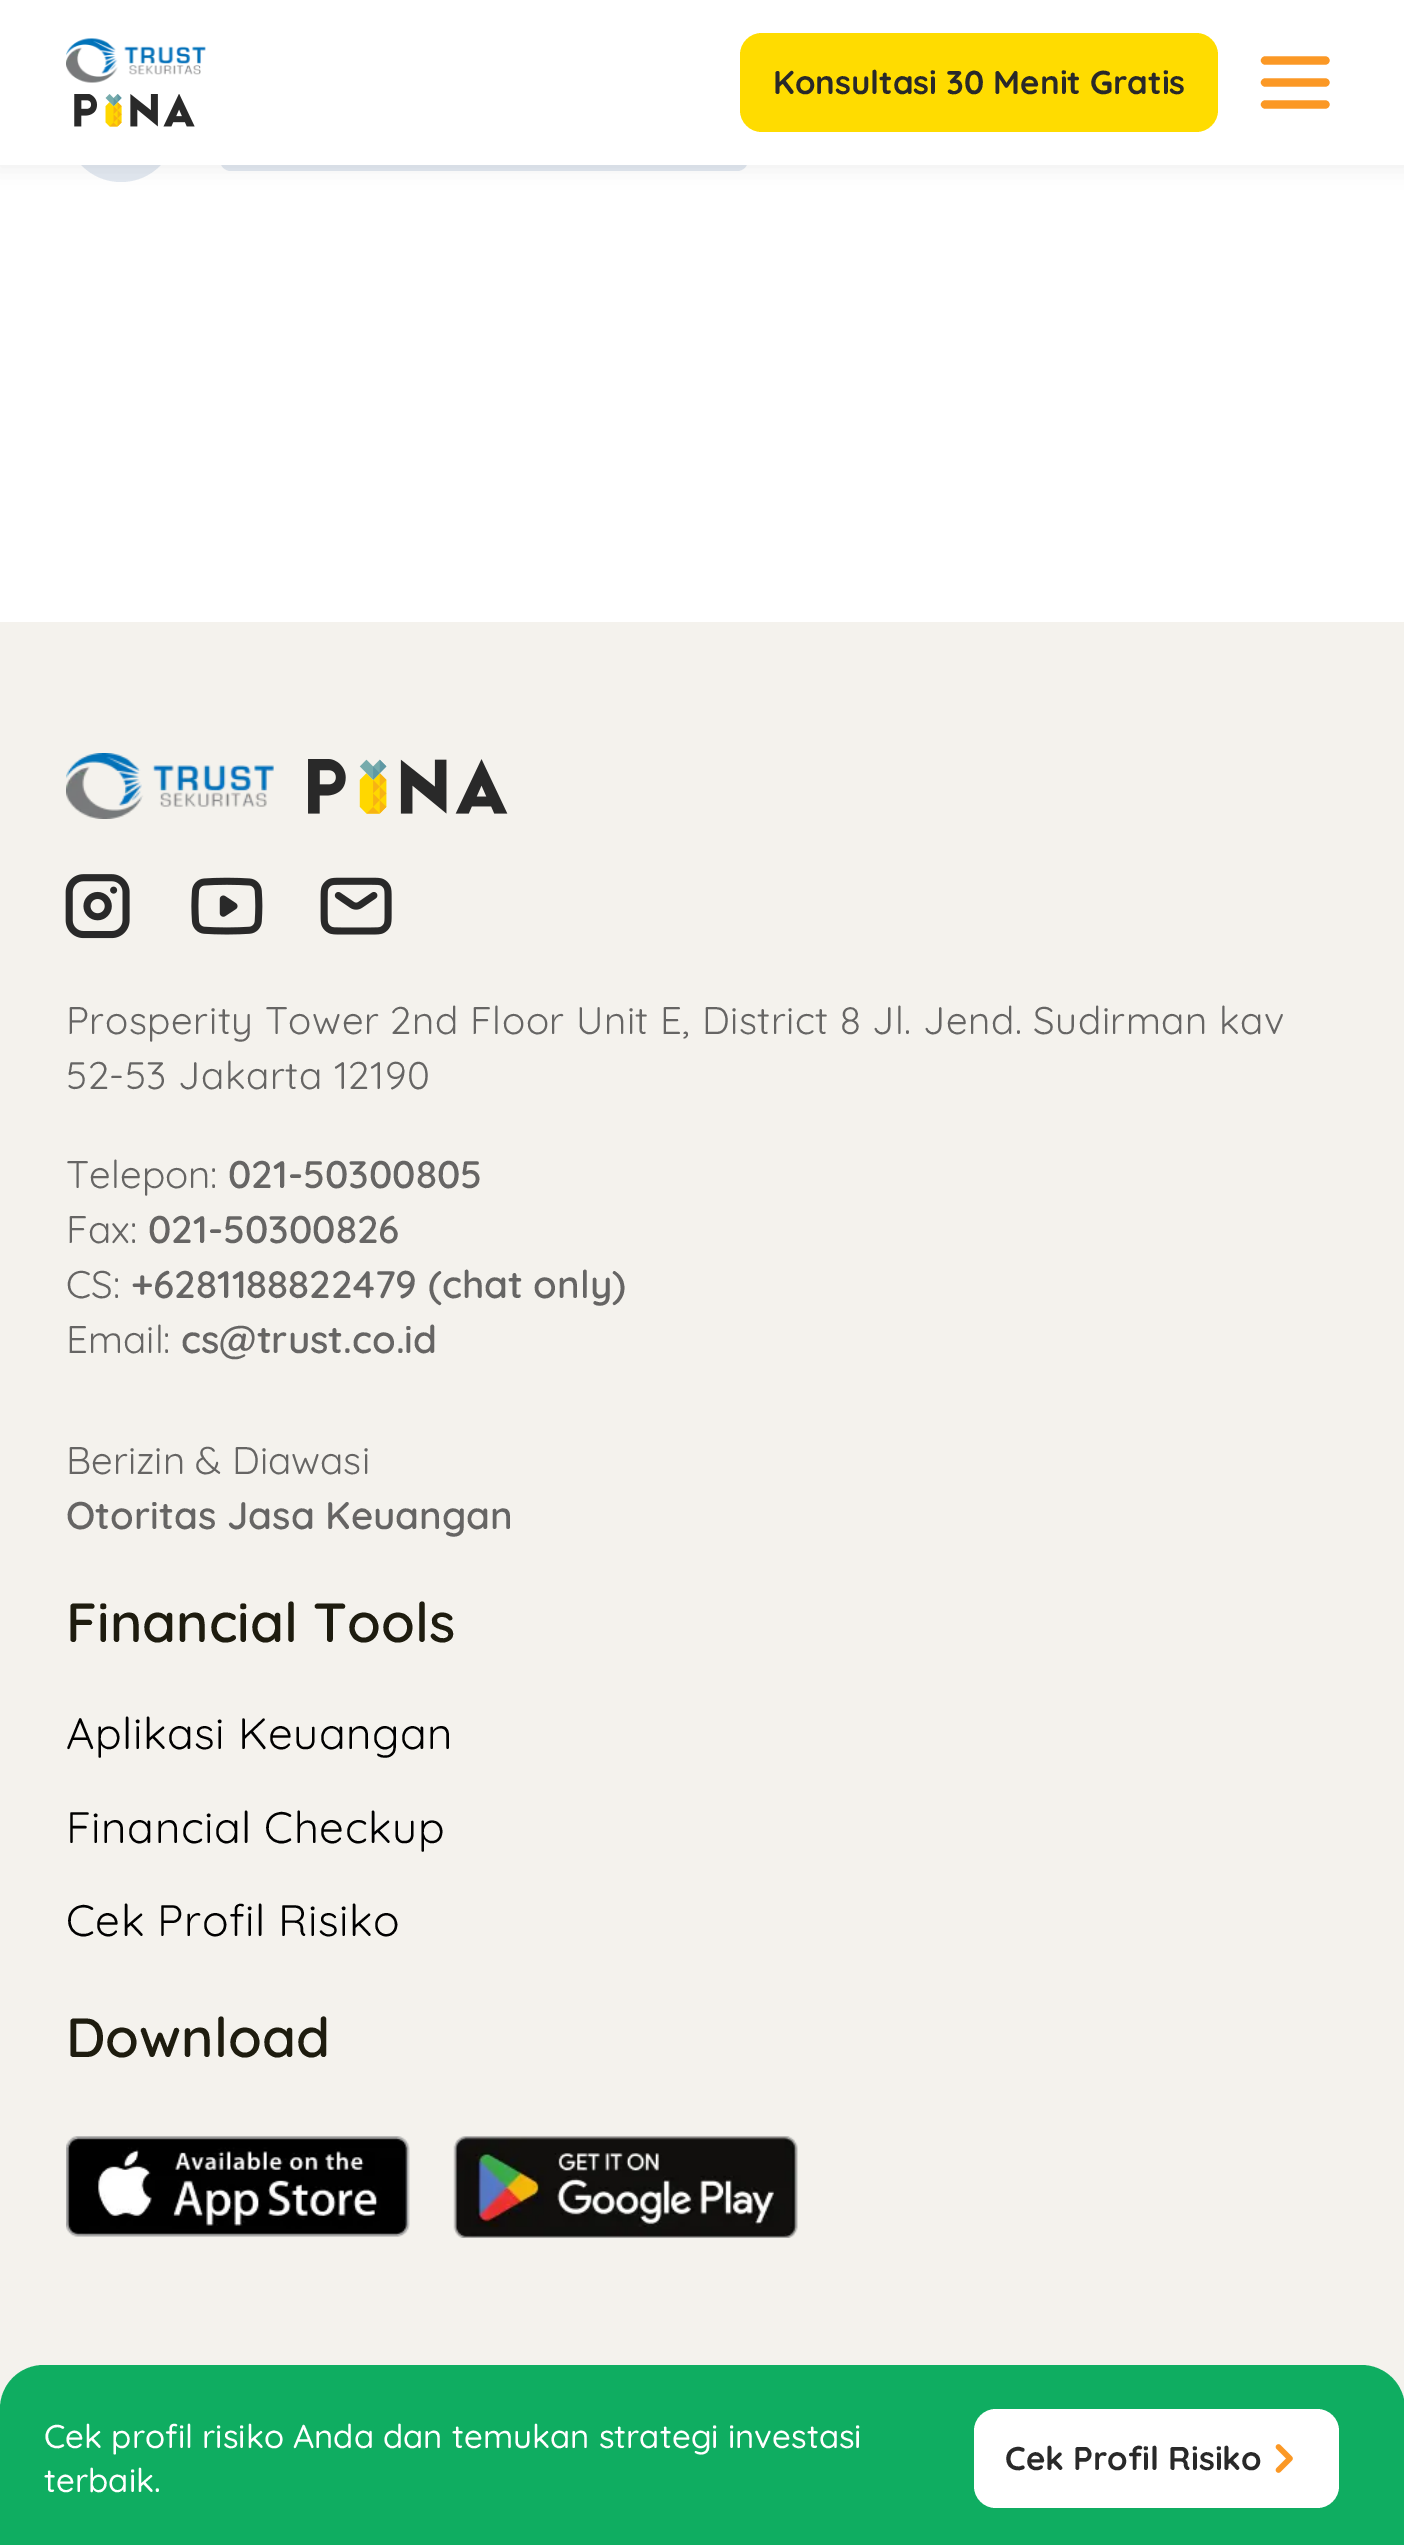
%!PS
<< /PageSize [1404 2545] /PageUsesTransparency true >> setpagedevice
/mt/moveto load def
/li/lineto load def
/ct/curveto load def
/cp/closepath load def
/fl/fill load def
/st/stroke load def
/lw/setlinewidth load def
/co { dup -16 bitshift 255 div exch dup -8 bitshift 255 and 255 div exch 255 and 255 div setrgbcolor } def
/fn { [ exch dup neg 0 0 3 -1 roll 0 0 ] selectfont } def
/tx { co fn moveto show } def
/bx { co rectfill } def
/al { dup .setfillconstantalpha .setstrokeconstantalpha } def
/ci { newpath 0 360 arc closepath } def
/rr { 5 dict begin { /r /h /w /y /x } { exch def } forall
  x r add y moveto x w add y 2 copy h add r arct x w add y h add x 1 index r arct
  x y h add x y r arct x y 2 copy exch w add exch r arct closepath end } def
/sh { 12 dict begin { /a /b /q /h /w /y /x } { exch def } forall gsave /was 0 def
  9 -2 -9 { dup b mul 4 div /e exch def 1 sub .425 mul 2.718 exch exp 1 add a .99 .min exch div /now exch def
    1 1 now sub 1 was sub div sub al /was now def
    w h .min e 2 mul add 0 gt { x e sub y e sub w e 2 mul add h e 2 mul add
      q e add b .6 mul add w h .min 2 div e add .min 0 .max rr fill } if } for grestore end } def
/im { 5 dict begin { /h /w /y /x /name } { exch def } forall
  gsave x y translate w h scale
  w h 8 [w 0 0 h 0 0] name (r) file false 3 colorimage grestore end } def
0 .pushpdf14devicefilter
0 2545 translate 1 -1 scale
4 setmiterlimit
0 0 1404 2545 16#FFFFFF bx
16#E2E8F0 co
121 127 55 ci fl
220 138 528 33 11 rr fl
16#000000 co
-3 0 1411 171 0 11 .06 sh
0 0 1404 165 16#FFFFFF bx
(media/1.raw) 66 38 140 45 im
(media/2.raw) 74 94 121 33 im
16#FFDC00 co
740 33 478 99 22 rr fl
16#FB9825 co
8.2 lw
1 setlinecap
1265 60.5 mt 1325.5 60.5 li st
1265 82.5 mt 1325.5 82.5 li st
1265 104.5 mt 1325.5 104.5 li st
0 622 1404 1787 16#F4F2ED bx
(media/3.raw) 66 753 208 66 im
(media/4.raw) 308 759 200 55 im
(media/5.raw) 65 874 65 65 im
(media/6.raw) 191 877 72 58 im
(media/7.raw) 320 877 72 58 im
(media/8.raw) 66 2136 344 101 im
(media/9.raw) 453 2136 345 102 im
16#0FAD61 co
44 2365 mt 1361 2365 li 1385.5 2365 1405 2384.5 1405 2409 ct 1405 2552 li 0 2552 li 0 2409 li 0 2384.5 19.5 2365 44 2365 ct cp fl
16#FFFFFF co
974 2409 365 99 22 rr fl
(media/10.raw) 1275 2444 18 29 im
(Konsultasi 30 Menit Gratis) 773 94 /Quicksand-Bold 33 16#292929 tx
/Quicksand-Regular 38.5 fn
16#666564 co
66 1034 mt .55 0 (Prosperity Tower 2nd Floor Unit E, District 8 Jl. Jend. Sudirman kav) ashow
66 1089 mt .55 0 (52-53 Jakarta 12190) ashow
(Telepon:) 66 1188 /Quicksand-Regular 38.5 16#666564 tx
(021-50300805) 228 1188 /Quicksand-SemiBold 38.5 16#666564 tx
(Fax:) 66 1243 /Quicksand-Regular 38.5 16#666564 tx
(021-50300826) 148 1243 /Quicksand-SemiBold 38.5 16#666564 tx
(CS:) 66 1298 /Quicksand-Regular 38.5 16#666564 tx
(+6281188822479 \(chat only\)) 131 1298 /Quicksand-SemiBold 38.5 16#666564 tx
(Email:) 66 1353 /Quicksand-Regular 38.5 16#666564 tx
(cs@trust.co.id) 181 1353 /Quicksand-SemiBold 38.5 16#666564 tx
(Berizin & Diawasi) 66 1474 /Quicksand-Regular 38.5 16#666564 tx
(Otoritas Jasa Keuangan) 66 1529 /Quicksand-SemiBold 38.5 16#666564 tx
(Financial Tools) 66 1642 /Quicksand-SemiBold 55 16#1E1C0F tx
/Quicksand-Regular 44 fn
16#000000 co
66 1749 mt .55 0 (Aplikasi Keuangan) ashow
66 1843 mt .55 0 (Financial Checkup) ashow
66 1936 mt .55 0 (Cek Profil Risiko) ashow
(Download) 66 2057 /Quicksand-SemiBold 55 16#1E1C0F tx
(Cek profil risiko Anda dan temukan strategi investasi) 44 2448 /Quicksand-Medium 33 16#FFFFFF tx
(terbaik.) 44 2492 /Quicksand-Medium 33 16#FFFFFF tx
(Cek Profil Risiko) 1005 2470 /Quicksand-Bold 33 16#292929 tx
.poppdf14devicefilter showpage
